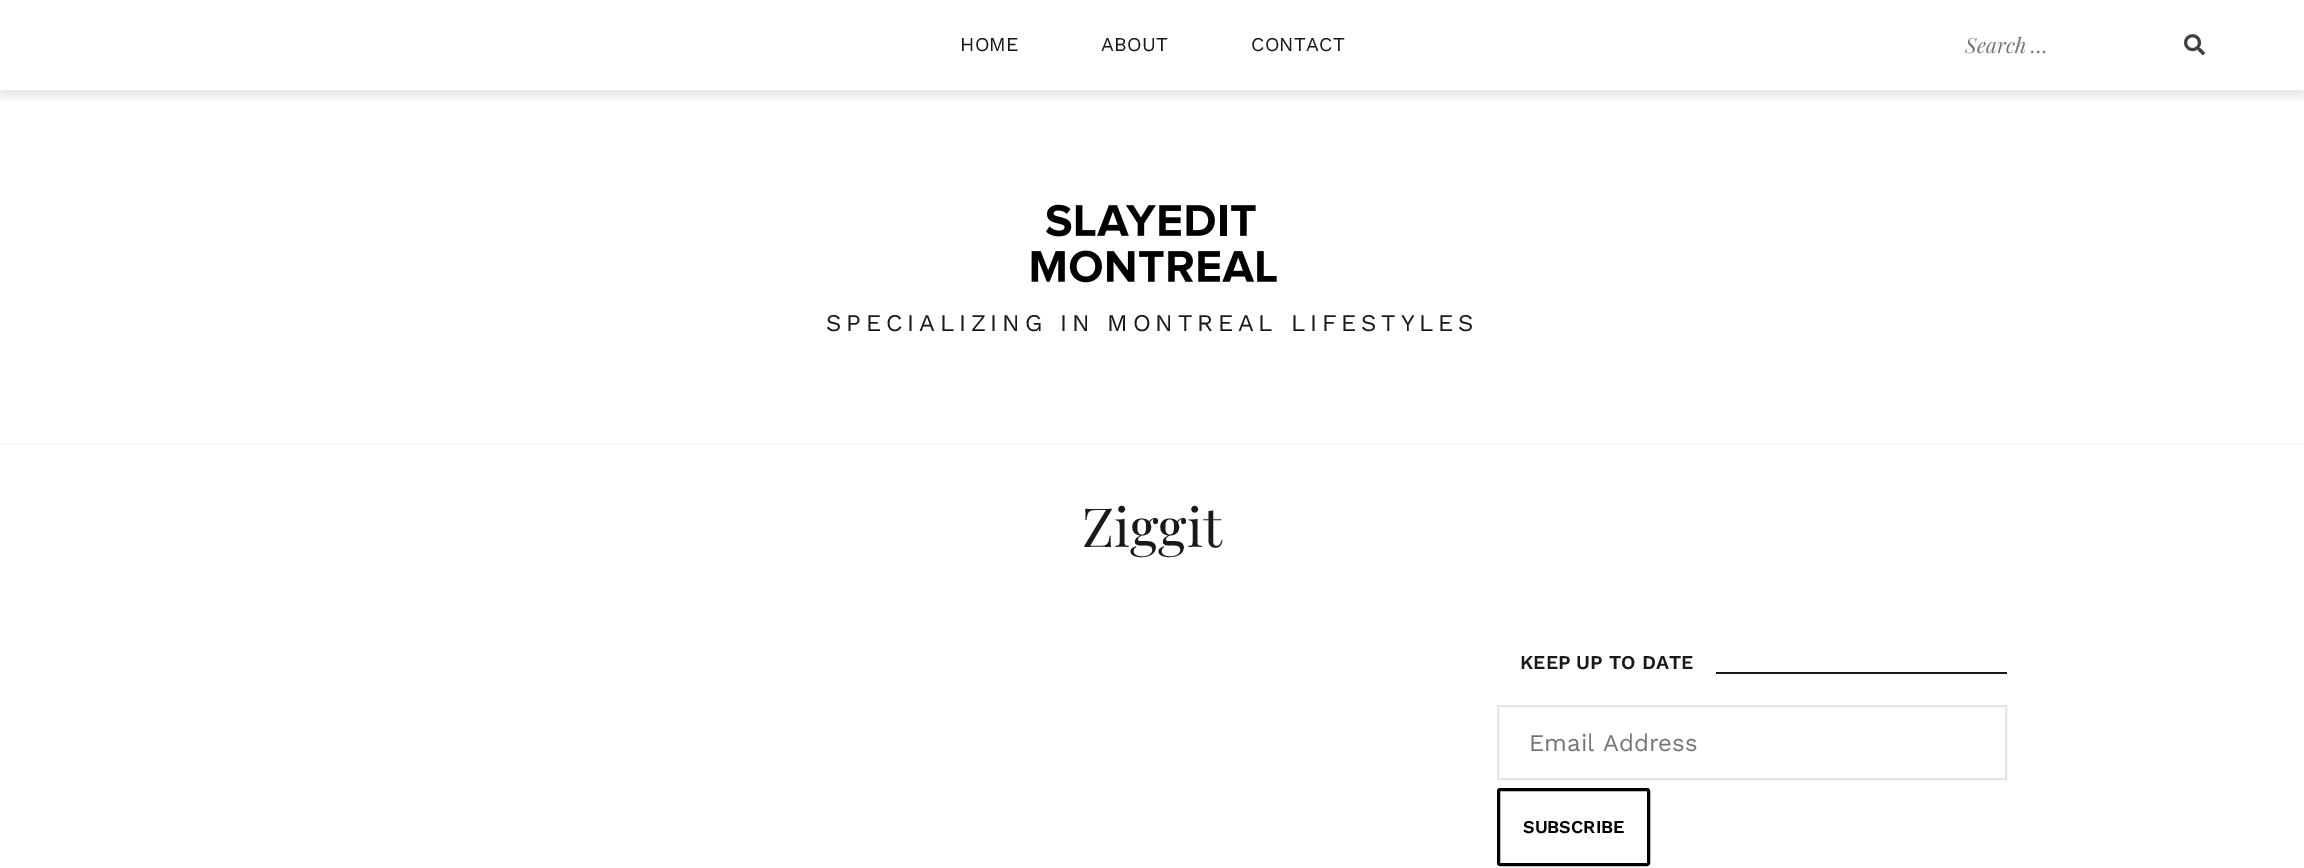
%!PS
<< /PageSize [2304 868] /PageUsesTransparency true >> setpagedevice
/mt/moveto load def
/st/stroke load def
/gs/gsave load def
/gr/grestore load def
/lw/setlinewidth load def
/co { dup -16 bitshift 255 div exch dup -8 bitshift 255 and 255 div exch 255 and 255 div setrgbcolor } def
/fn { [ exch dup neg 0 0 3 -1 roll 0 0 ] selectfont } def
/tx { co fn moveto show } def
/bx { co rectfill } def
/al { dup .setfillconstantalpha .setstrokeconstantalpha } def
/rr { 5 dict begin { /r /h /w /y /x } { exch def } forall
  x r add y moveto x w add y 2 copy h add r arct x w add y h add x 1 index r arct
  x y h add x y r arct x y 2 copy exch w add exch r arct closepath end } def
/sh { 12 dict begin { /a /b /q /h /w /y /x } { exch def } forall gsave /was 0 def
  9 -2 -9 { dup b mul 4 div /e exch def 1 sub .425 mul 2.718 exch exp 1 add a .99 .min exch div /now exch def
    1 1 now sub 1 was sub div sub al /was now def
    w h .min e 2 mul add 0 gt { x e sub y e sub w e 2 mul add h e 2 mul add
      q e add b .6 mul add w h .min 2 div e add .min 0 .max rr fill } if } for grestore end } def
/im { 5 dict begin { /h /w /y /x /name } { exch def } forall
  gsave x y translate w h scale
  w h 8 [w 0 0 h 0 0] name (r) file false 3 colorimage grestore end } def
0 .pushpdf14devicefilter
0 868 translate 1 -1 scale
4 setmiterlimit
0 0 2304 868 16#FFFFFF bx
gs
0 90 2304 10 rectclip
16#000000 co
0 6 2304 90 0 5 .1 sh
gr
(media/1.raw) 2184 34 21 22 im
(media/2.raw) 1031 204 246 79 im
0 443 2304 2 16#F4F6F9 bx
1716 672 291 2 16#191919 bx
16#E5E5E5 co
2 lw
1498 706 508 73 rectstroke
16#000000 co
3 lw
1498.5 789.5 150 75 1.5 rr st
/WorkSans-Regular 19.5 fn
16#191919 co
960 51 mt .25 0 (HOME) ashow
1101 51 mt .25 0 (ABOUT) ashow
1251 51 mt .25 0 (CONTACT) ashow
(Search …) 1965 53 /PlayfairDisplay-Italic 21 16#757575 tx
/WorkSans-Regular 24 fn
16#191919 co
826 331 mt 4.8 0 (SPECIALIZING IN MONTREAL LIFESTYLES) ashow
(Ziggit) 1082 547 /PlayfairDisplay-Regular 54 16#191919 tx
(KEEP UP TO DATE) 1520 669 /WorkSans-SemiBold 19.5 16#191919 tx
(Email Address) 1529 751 /WorkSans-Regular 24 16#757575 tx
(SUBSCRIBE) 1523 833 /WorkSans-SemiBold 18 16#000000 tx
.poppdf14devicefilter showpage
